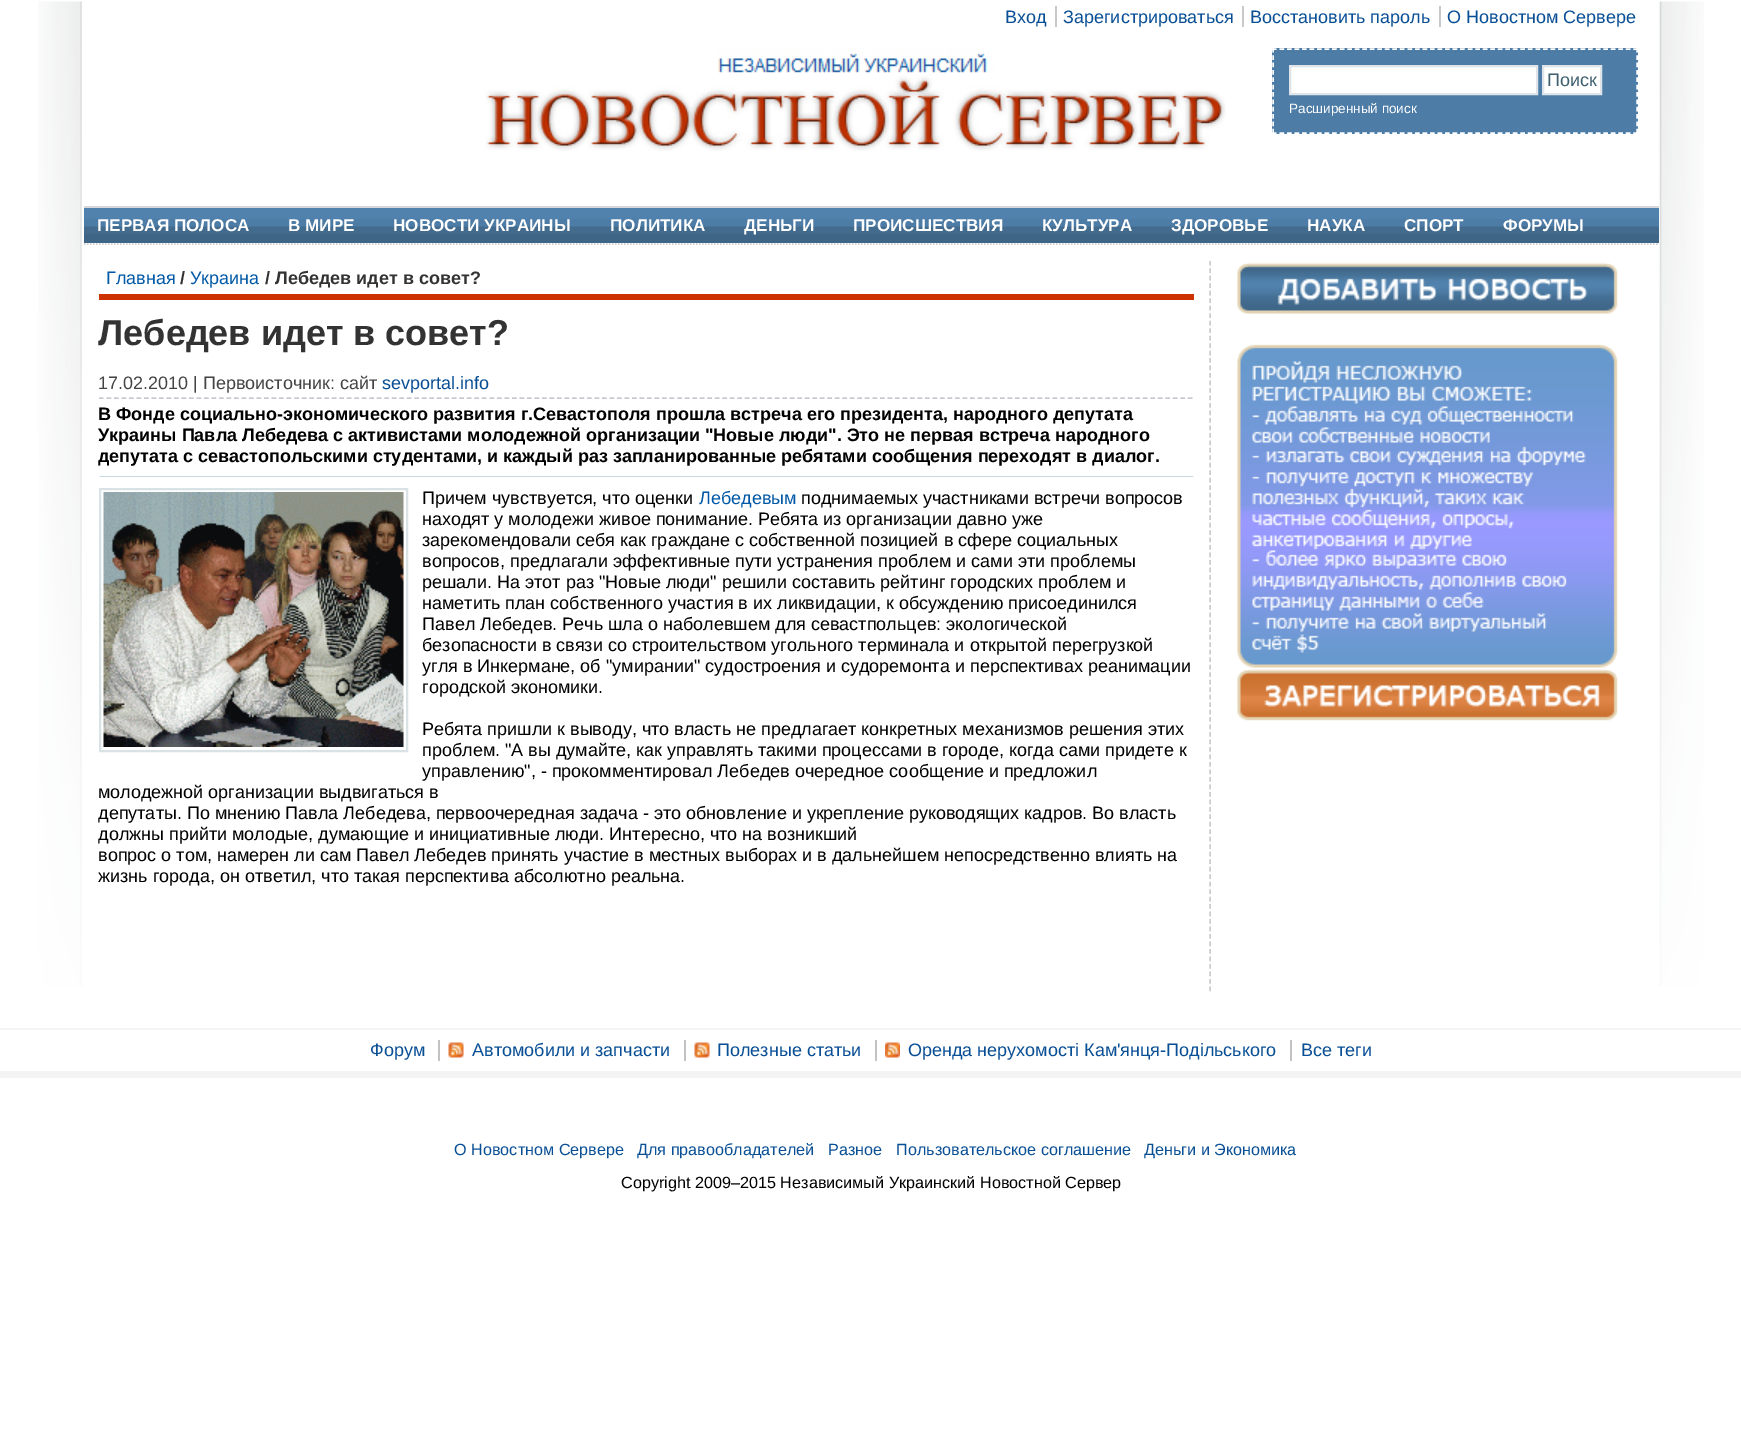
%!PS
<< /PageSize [1741 1431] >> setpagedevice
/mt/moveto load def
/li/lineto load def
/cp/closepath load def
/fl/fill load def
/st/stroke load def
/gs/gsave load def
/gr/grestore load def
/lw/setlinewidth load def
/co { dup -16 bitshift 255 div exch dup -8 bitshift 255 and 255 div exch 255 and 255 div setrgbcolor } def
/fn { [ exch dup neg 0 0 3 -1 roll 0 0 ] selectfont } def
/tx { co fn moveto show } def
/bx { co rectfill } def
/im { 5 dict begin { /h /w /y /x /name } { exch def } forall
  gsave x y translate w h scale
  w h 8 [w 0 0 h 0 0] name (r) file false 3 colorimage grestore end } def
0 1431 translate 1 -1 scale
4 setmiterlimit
0 0 1741 1431 16#FFFFFF bx
(media/1.raw) 38 1 1666 985 im
1055 6 2 21 16#C8C9CB bx
1242 6 2 21 16#C8C9CB bx
1439 6 2 21 16#C8C9CB bx
(media/2.raw) 485 48 741 103 im
1272 48 366 86 16#4D7CA6 bx
16#FFFFFF co
1.5 lw
[4.5 3.03] 0 setdash
1272 49 mt 1638 49 li st
[4.5 2.86] 0 setdash
1637 48 mt 1637 133.5 li st
[4.5 3.03] 0 setdash
1272 133 mt 1638 133 li st
[4.5 2.86] 0 setdash
1273 48 mt 1273 133.5 li st
1290 66 mt 1537 66 li 1537 94 li 1290 94 li cp gs fl gr
16#DEE4E9 co
2 lw
[] 0 setdash
st
16#FFFFFF co
1543 66 mt 1601 66 li 1601 94 li 1543 94 li cp gs fl gr
16#DEE4E9 co
st
(media/3.raw) 84 208 1575 35 im
84 206 1575 2 16#D8D8DC bx
16#CCCCCC co
1.5 lw
[1.5 1.5] 0 setdash
84 244 mt 1659 244 li st
[4.5 2.98] 0 setdash
1210 261 mt 1210 991.5 li st
99 294 1095 6 16#CC3300 bx
16#C7CBD0 co
[4.5 3.01] 0 setdash
99 398 mt 1194 398 li st
16#C8D9E2 co
99 476 mt 1194 476 li 1192 477 li 100 477 li cp fl
16#D9E2E5 co
2 lw
[] 0 setdash
100 489 307 262 rectstroke
(media/4.raw) 103 492 301 255 im
(media/5.raw) 1237 262 381 52 im
(media/6.raw) 1237 344 381 377 im
0 1071 1741 7 16#F4F4F4 bx
0 1028 1741 2 16#F4F4F4 bx
(media/7.raw) 448 1042 16 16 im
438 1040 2 21 16#C2C2C2 bx
(media/8.raw) 694 1042 16 16 im
684 1040 2 21 16#C2C2C2 bx
(media/9.raw) 885 1042 15 16 im
875 1040 2 21 16#C2C2C2 bx
1290 1040 2 21 16#C2C2C2 bx
(Вход) 1005 23 /LiberationSans-Regular 18 16#094F95 tx
(Зарегистрироваться) 1063 23 /LiberationSans-Regular 18 16#094F95 tx
(Восстановить пароль) 1250 23 /LiberationSans-Regular 18 16#094F95 tx
(О Новостном Сервере) 1447 23 /LiberationSans-Regular 18 16#094F95 tx
(Поиск) 1547 86 /LiberationSans-Regular 18 16#3E606F tx
(Расширенный поиск) 1289 113 /LiberationSans-Regular 13.5 16#FFFFFF tx
(ПЕРВАЯ ПОЛОСА) 97 231 /LiberationSans-Bold 17.1 16#FFFFFF tx
(В МИРЕ) 288 231 /LiberationSans-Bold 17.1 16#FFFFFF tx
(НОВОСТИ УКРАИНЫ) 393 231 /LiberationSans-Bold 17.1 16#FFFFFF tx
(ПОЛИТИКА) 610 231 /LiberationSans-Bold 17.1 16#FFFFFF tx
(ДЕНЬГИ) 744 231 /LiberationSans-Bold 17.1 16#FFFFFF tx
(ПРОИСШЕСТВИЯ) 853 231 /LiberationSans-Bold 17.1 16#FFFFFF tx
(КУЛЬТУРА) 1042 231 /LiberationSans-Bold 17.1 16#FFFFFF tx
(ЗДОРОВЬЕ) 1171 231 /LiberationSans-Bold 17.1 16#FFFFFF tx
(НАУКА) 1307 231 /LiberationSans-Bold 17.1 16#FFFFFF tx
(СПОРТ) 1404 231 /LiberationSans-Bold 17.1 16#FFFFFF tx
(ФОРУМЫ) 1503 231 /LiberationSans-Bold 17.1 16#FFFFFF tx
(Главная) 106 284 /LiberationSans-Regular 18 16#0058A6 tx
(/) 180 284 /LiberationSans-Bold 18 16#333333 tx
(Украина) 190 284 /LiberationSans-Regular 18 16#0058A6 tx
(/ Лебедев идет в совет?) 265 284 /LiberationSans-Bold 18 16#333333 tx
(Лебедев идет в совет?) 98 345 /LiberationSans-Bold 36 16#333333 tx
(17.02.2010 | Первоисточник: сайт) 98 389 /LiberationSans-Regular 18 16#444444 tx
(sevportal.info) 382 389 /LiberationSans-Regular 18 16#094F95 tx
(В Фонде социально-экономического развития г.Севастополя прошла встреча его президента, народного депутата) 98 420 /LiberationSans-Bold 18 16#000000 tx
(Украины Павла Лебедева с активистами молодежной организации "Новые люди". Это не первая встреча народного) 98 441 /LiberationSans-Bold 18 16#000000 tx
(депутата с севастопольскими студентами, и каждый раз запланированные ребятами сообщения переходят в диалог.) 98 462 /LiberationSans-Bold 18 16#000000 tx
(Причем чувствуется, что оценки) 422 504 /LiberationSans-Regular 18 16#000000 tx
(Лебедевым) 699 504 /LiberationSans-Regular 18 16#0058A6 tx
(поднимаемых участниками встречи вопросов) 801 504 /LiberationSans-Regular 18 16#000000 tx
(находят у молодежи живое понимание. Ребята из организации давно уже) 422 525 /LiberationSans-Regular 18 16#000000 tx
(зарекомендовали себя как граждане с собственной позицией в сфере социальных) 422 546 /LiberationSans-Regular 18 16#000000 tx
(вопросов, предлагали эффективные пути устранения проблем и сами эти проблемы) 422 567 /LiberationSans-Regular 18 16#000000 tx
(решали. На этот раз "Новые люди" решили составить рейтинг городских проблем и) 422 588 /LiberationSans-Regular 18 16#000000 tx
(наметить план собственного участия в их ликвидации, к обсуждению присоединился) 422 609 /LiberationSans-Regular 18 16#000000 tx
(Павел Лебедев. Речь шла о наболевшем для севастпольцев: экологической) 422 630 /LiberationSans-Regular 18 16#000000 tx
(безопасности в связи со строительством угольного терминала и открытой перегрузкой) 422 651 /LiberationSans-Regular 18 16#000000 tx
(угля в Инкермане, об "умирании" судостроения и судоремонта и перспективах реанимации) 422 672 /LiberationSans-Regular 18 16#000000 tx
(городской экономики.) 422 693 /LiberationSans-Regular 18 16#000000 tx
(Ребята пришли к выводу, что власть не предлагает конкретных механизмов решения этих) 422 735 /LiberationSans-Regular 18 16#000000 tx
(проблем. "А вы думайте, как управлять такими процессами в городе, когда сами придете к) 422 756 /LiberationSans-Regular 18 16#000000 tx
(управлению", - прокомментировал Лебедев очередное сообщение и предложил) 422 777 /LiberationSans-Regular 18 16#000000 tx
(молодежной организации выдвигаться в) 98 798 /LiberationSans-Regular 18 16#000000 tx
(депутаты. По мнению Павла Лебедева, первоочередная задача - это обновление и укрепление руководящих кадров. Во власть) 98 819 /LiberationSans-Regular 18 16#000000 tx
(должны прийти молодые, думающие и инициативные люди. Интересно, что на возникший) 98 840 /LiberationSans-Regular 18 16#000000 tx
(вопрос о том, намерен ли сам Павел Лебедев принять участие в местных выборах и в дальнейшем непосредственно влиять на) 98 861 /LiberationSans-Regular 18 16#000000 tx
(жизнь города, он ответил, что такая перспектива абсолютно реальна.) 98 882 /LiberationSans-Regular 18 16#000000 tx
(Форум) 370 1056 /LiberationSans-Regular 18 16#094F95 tx
(Автомобили и запчасти) 472 1056 /LiberationSans-Regular 18 16#094F95 tx
(Полезные статьи) 717 1056 /LiberationSans-Regular 18 16#094F95 tx
(Оренда нерухомості Кам'янця-Подільського) 908 1056 /LiberationSans-Regular 18 16#094F95 tx
(Все теги) 1301 1056 /LiberationSans-Regular 18 16#094F95 tx
(О Новостном Сервере) 454 1155 /LiberationSans-Regular 16.2 16#094F95 tx
(Для правообладателей) 637 1155 /LiberationSans-Regular 16.2 16#094F95 tx
(Разное) 828 1155 /LiberationSans-Regular 16.2 16#094F95 tx
(Пользовательское соглашение) 896 1155 /LiberationSans-Regular 16.2 16#094F95 tx
(Деньги и Экономика) 1144 1155 /LiberationSans-Regular 16.2 16#094F95 tx
(Copyright 2009–2015 Независимый Украинский Новостной Сервер) 621 1188 /LiberationSans-Regular 16.2 16#000000 tx
showpage
